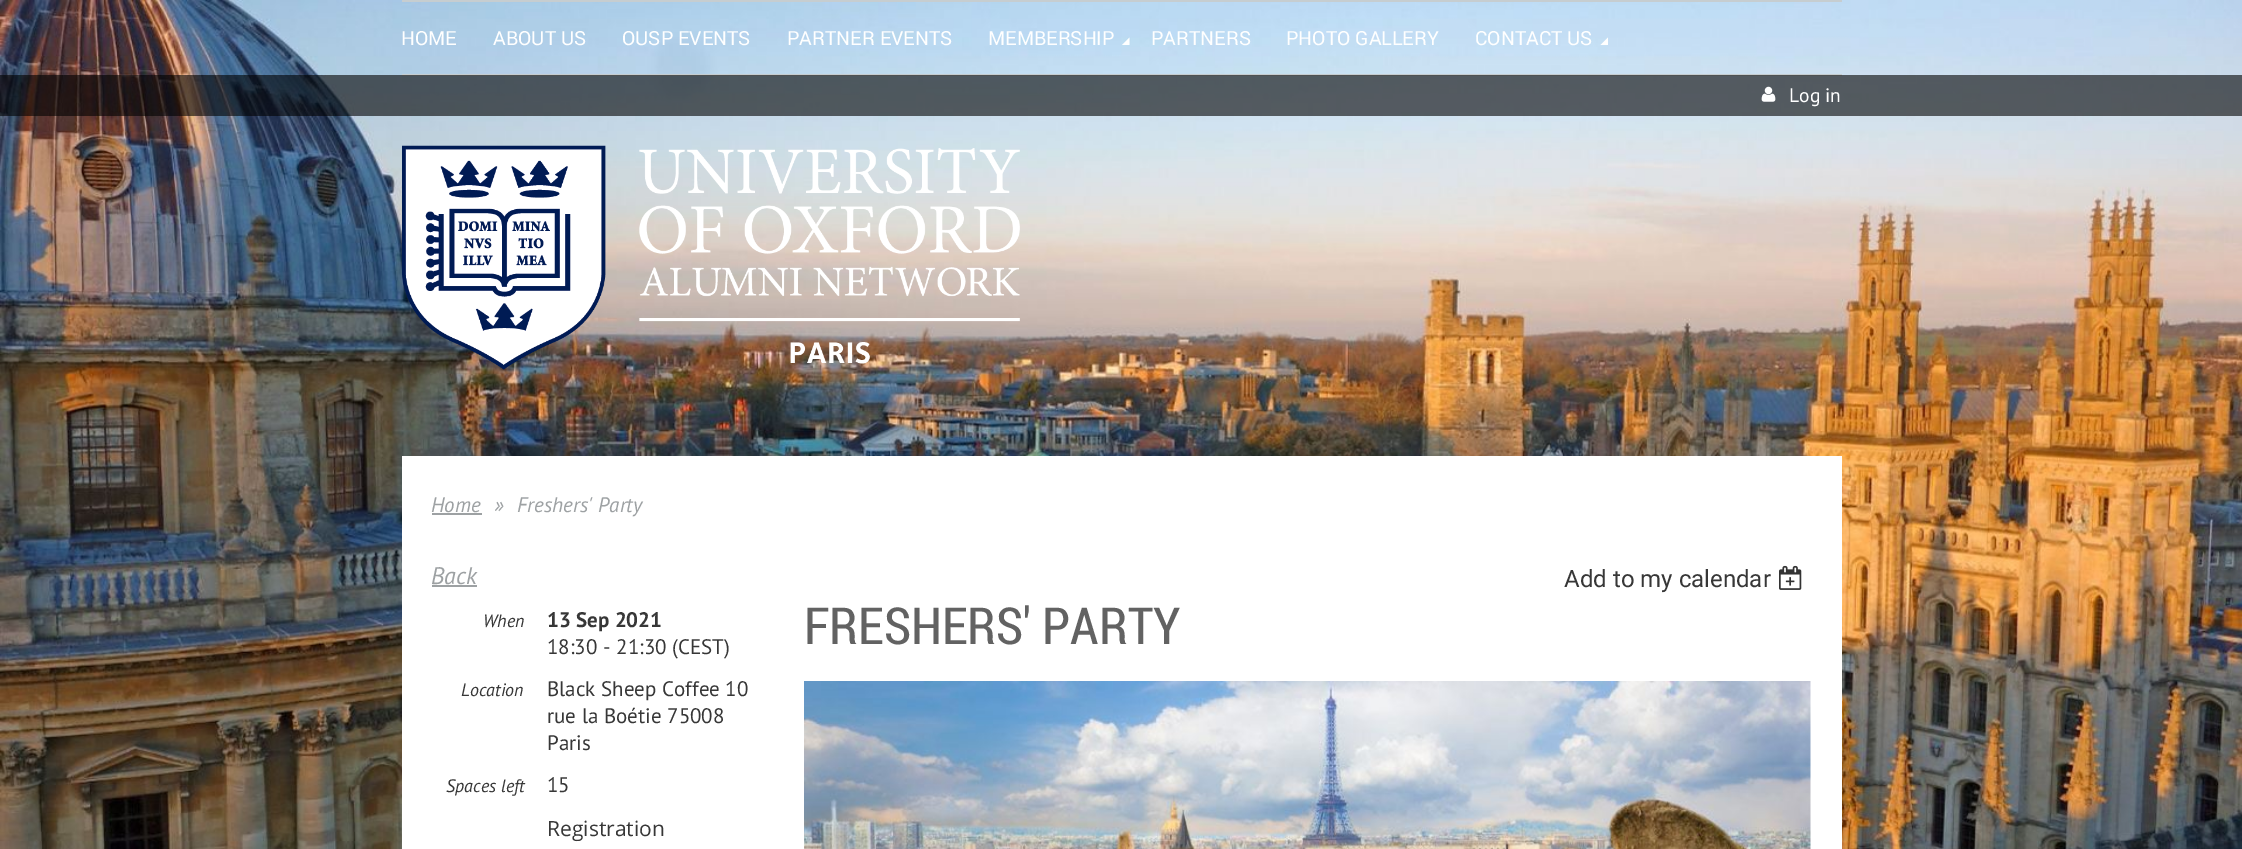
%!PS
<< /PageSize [2242 849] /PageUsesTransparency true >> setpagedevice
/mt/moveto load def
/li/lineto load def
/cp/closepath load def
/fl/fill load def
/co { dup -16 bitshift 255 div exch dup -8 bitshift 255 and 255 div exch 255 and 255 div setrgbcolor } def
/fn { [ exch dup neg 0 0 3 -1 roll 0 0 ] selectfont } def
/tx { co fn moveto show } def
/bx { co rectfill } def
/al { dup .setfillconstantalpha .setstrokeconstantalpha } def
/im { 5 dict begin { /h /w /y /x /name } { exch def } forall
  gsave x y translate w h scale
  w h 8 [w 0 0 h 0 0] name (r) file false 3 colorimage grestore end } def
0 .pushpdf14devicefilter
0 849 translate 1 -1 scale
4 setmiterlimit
0 0 2242 849 16#FFFFFF bx
(media/1.raw) 0 0 2242 849 im
402 0 1440 2 16#C6CDD0 bx
402 74 1440 2 16#C6CDD0 bx
16#FFFFFF co
1129.5 45 mt 1122 45 li 1129.5 37.5 li cp fl
1608 45 mt 1600.5 45 li 1608 37.5 li cp fl
0.6 al
0 75 2242 41 16#000000 bx
1 al
(media/2.raw) 1761 86 15 16 im
(media/3.raw) 402 145 618 225 im
402 456 1440 393 16#FFFFFF bx
432 513 50 2 16#9DA1A3 bx
432 585 45 2 16#9DA1A3 bx
(media/4.raw) 1779 565 23 25 im
(media/5.raw) 804 681 1007 168 im
(HOME) 401 45 /Roboto-Regular 19.5 16#FFFFFF tx
(ABOUT US) 493 45 /Roboto-Regular 19.5 16#FFFFFF tx
(OUSP EVENTS) 622 45 /Roboto-Regular 19.5 16#FFFFFF tx
(PARTNER EVENTS) 787 45 /Roboto-Regular 19.5 16#FFFFFF tx
(MEMBERSHIP) 988 45 /Roboto-Regular 19.5 16#FFFFFF tx
(PARTNERS) 1151 45 /Roboto-Regular 19.5 16#FFFFFF tx
(PHOTO GALLERY) 1286 45 /Roboto-Regular 19.5 16#FFFFFF tx
(CONTACT US) 1475 45 /Roboto-Regular 19.5 16#FFFFFF tx
(Log in) 1789 102 /PTSans-Regular 19.5 16#FFFFFF tx
(Home) 431 512 /PTSans-Italic 21 16#9DA1A3 tx
(») 494 512 /PTSans-Italic 21 16#9DA1A3 tx
(Freshers' Party) 517 512 /PTSans-Italic 21 16#9DA1A3 tx
(Back) 431 584 /PTSans-Italic 24 16#9DA1A3 tx
(Add to my calendar) 1564 587 /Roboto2-Regular 24 16#373737 tx
(FRESHERS' PARTY) 804 644 /RobotoCondensed-Regular 51 16#626262 tx
(When) 483 627 /PTSans-Italic 18 16#373737 tx
(13 Sep 2021) 547 627 /PTSans-Bold 21 16#373737 tx
(18:30 - 21:30 \(CEST\)) 547 654 /PTSans-Regular 21 16#373737 tx
(Location) 461 696 /PTSans-Italic 18 16#373737 tx
(Black Sheep Coffee 10) 547 696 /PTSans-Regular 21 16#373737 tx
(rue la Boétie 75008) 547 723 /PTSans-Regular 21 16#373737 tx
(Paris) 547 750 /PTSans-Regular 21 16#373737 tx
(Spaces left) 446 792 /PTSans-Italic 18 16#373737 tx
(15) 547 792 /PTSans-Regular 21 16#373737 tx
(Registration) 547 836 /OpenSans-Regular 21 16#373737 tx
.poppdf14devicefilter showpage
